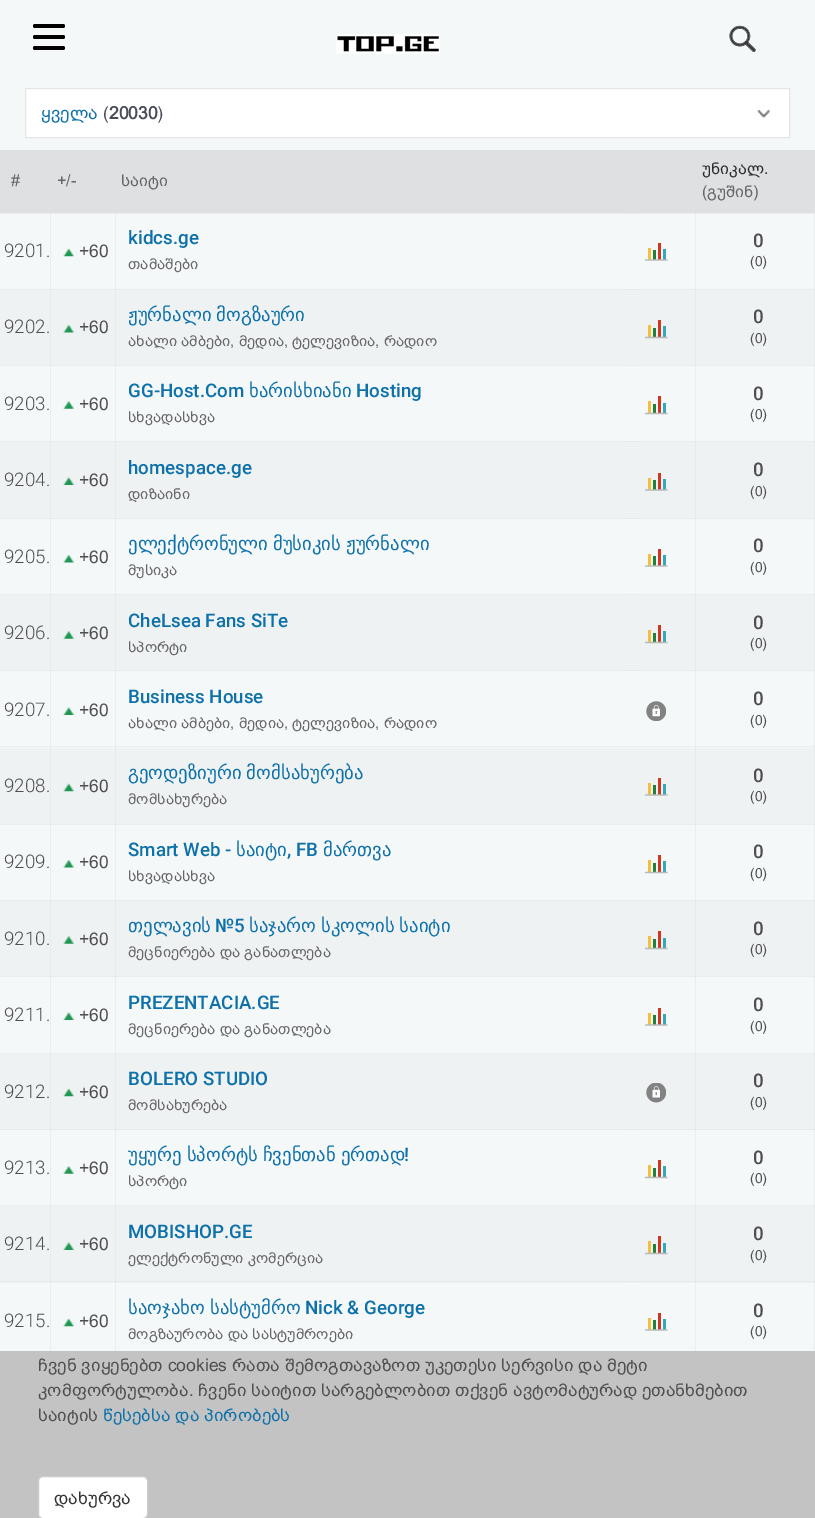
%!PS
<< /PageSize [815 1518] >> setpagedevice
/mt/moveto load def
/li/lineto load def
/cp/closepath load def
/fl/fill load def
/st/stroke load def
/gs/gsave load def
/gr/grestore load def
/lw/setlinewidth load def
/co { dup -16 bitshift 255 div exch dup -8 bitshift 255 and 255 div exch 255 and 255 div setrgbcolor } def
/fn { [ exch dup neg 0 0 3 -1 roll 0 0 ] selectfont } def
/tx { co fn moveto show } def
/bx { co rectfill } def
/rr { 5 dict begin { /r /h /w /y /x } { exch def } forall
  x r add y moveto x w add y 2 copy h add r arct x w add y h add x 1 index r arct
  x y h add x y r arct x y 2 copy exch w add exch r arct closepath end } def
/im { 5 dict begin { /h /w /y /x /name } { exch def } forall
  gsave x y translate w h scale
  w h 8 [w 0 0 h 0 0] name (r) file false 3 colorimage grestore end } def
0 1518 translate 1 -1 scale
4 setmiterlimit
0 0 815 1518 16#F4F8F9 bx
50 213 1 77 16#EBEEEE bx
0 213 51 1 16#EBEEEE bx
115 213 1 77 16#EBEEEE bx
50 213 583 1 16#EBEEEE bx
50 213 1 1 16#E3E4E4 bx
115 213 1 1 16#E3E4E4 bx
695 213 1 77 16#EBEEEE bx
631 213 65 1 16#EBEEEE bx
631 213 2 1 16#E6E8E8 bx
814 213 1 77 16#EBEEEE bx
50 365 1 78 16#EBEEEE bx
0 365 51 1 16#EBEEEE bx
115 365 1 78 16#EBEEEE bx
50 365 583 1 16#EBEEEE bx
50 365 1 1 16#E1E1E1 bx
115 365 1 1 16#E1E1E1 bx
695 365 1 78 16#EBEEEE bx
631 365 65 1 16#EBEEEE bx
631 365 2 1 16#E6E8E8 bx
814 365 1 78 16#EBEEEE bx
50 518 1 77 16#EBEEEE bx
115 518 1 77 16#EBEEEE bx
695 518 1 77 16#EBEEEE bx
814 518 1 77 16#EBEEEE bx
0 594 815 1 16#EBEEEE bx
50 594 1 1 16#E1E1E1 bx
115 594 1 1 16#E1E1E1 bx
631 594 2 1 16#E6E8E8 bx
50 670 1 78 16#EBEEEE bx
115 670 1 78 16#EBEEEE bx
695 670 1 78 16#EBEEEE bx
814 670 1 78 16#EBEEEE bx
50 746 1 2 16#E6E8E8 bx
0 746 51 1 16#EBEEEE bx
115 746 1 2 16#E6E8E8 bx
50 746 583 1 16#EBEEEE bx
50 746 1 1 16#E1E1E1 bx
115 746 1 1 16#E1E1E1 bx
695 746 1 2 16#E6E8E8 bx
631 746 65 1 16#EBEEEE bx
631 746 2 1 16#E6E8E8 bx
814 746 1 2 16#E6E8E8 bx
50 824 1 77 16#EBEEEE bx
0 824 51 1 16#EBEEEE bx
115 824 1 77 16#EBEEEE bx
50 824 583 1 16#EBEEEE bx
50 824 1 1 16#E1E1E1 bx
115 824 1 1 16#E1E1E1 bx
695 824 1 77 16#EBEEEE bx
631 824 65 1 16#EBEEEE bx
631 824 2 1 16#E6E8E8 bx
814 824 1 77 16#EBEEEE bx
50 976 1 78 16#EBEEEE bx
50 976 1 2 16#E6E8E8 bx
0 976 51 1 16#EBEEEE bx
115 976 1 78 16#EBEEEE bx
115 976 1 2 16#E6E8E8 bx
50 976 583 1 16#EBEEEE bx
50 976 1 1 16#E1E1E1 bx
115 976 1 1 16#E1E1E1 bx
695 976 1 78 16#EBEEEE bx
695 976 1 2 16#E6E8E8 bx
631 976 65 1 16#EBEEEE bx
631 976 2 1 16#E6E8E8 bx
814 976 1 78 16#EBEEEE bx
814 976 1 2 16#E6E8E8 bx
0 1053 815 1 16#EBEEEE bx
50 1053 1 1 16#E1E1E1 bx
115 1053 1 1 16#E1E1E1 bx
631 1053 2 1 16#E6E8E8 bx
50 1129 1 77 16#EBEEEE bx
115 1129 1 77 16#EBEEEE bx
695 1129 1 77 16#EBEEEE bx
814 1129 1 77 16#EBEEEE bx
0 1205 815 1 16#EBEEEE bx
50 1205 1 1 16#E1E1E1 bx
115 1205 1 1 16#E1E1E1 bx
631 1205 2 1 16#E6E8E8 bx
50 1281 1 70 16#EBEEEE bx
115 1281 1 70 16#EBEEEE bx
695 1281 1 70 16#EBEEEE bx
814 1281 1 70 16#EBEEEE bx
16#000000 co
33 24 32 4 2 rr fl
33 35 32 4 2 rr fl
33 46 32 4 2 rr fl
(media/1.raw) 336 34 104 20 im
(media/2.raw) 729 25 27 27 im
16#FFFFFF co
25.5 88.5 mt 789.5 88.5 li 789.5 137.5 li 25.5 137.5 li cp gs fl gr
16#E5E5E5 co
st
(media/3.raw) 757 110 13 8 im
0 150 815 63 16#DEE0E1 bx
(media/4.raw) 63 248 11 9 im
648 248 3 12 16#F5BE40 bx
653 250 3 10 16#248139 bx
658 243 3 17 16#CF3722 bx
663 249 3 11 16#32A9B8 bx
16#BABABA co
1.2 lw
1 setlinecap
1 setlinejoin
645.5 260 mt 667 260 li st
695 213 120 1 16#EBEEEE bx
695 213 1 1 16#E3E4E4 bx
814 213 1 1 16#E6E8E8 bx
0 290 814 75 16#EEF2F3 bx
50 289 1 76 16#E8EAEB bx
0 289 51 1 16#E8EAEB bx
115 289 1 76 16#E8EAEB bx
50 289 583 1 16#E8EAEB bx
50 289 1 1 16#DFE0E1 bx
115 289 1 1 16#DFE0E1 bx
695 289 1 76 16#E8EAEB bx
631 289 65 1 16#E8EAEB bx
631 289 2 1 16#E4E5E6 bx
814 289 1 76 16#E8EAEB bx
(media/5.raw) 63 325 11 8 im
648 325 3 13 16#F5BE40 bx
653 328 3 10 16#248139 bx
658 320 3 18 16#CF3722 bx
663 326 3 12 16#32A9B8 bx
16#BABABA co
645.5 337.5 mt 667 337.5 li st
695 289 120 1 16#E8EAEB bx
695 289 1 1 16#DFE0E1 bx
814 289 1 1 16#E1E2E3 bx
(media/6.raw) 63 401 11 8 im
648 401 3 13 16#F5BE40 bx
653 404 3 10 16#248139 bx
658 396 3 18 16#CF3722 bx
663 403 3 11 16#32A9B8 bx
16#BABABA co
645.5 413.5 mt 667 413.5 li st
695 365 120 1 16#EBEEEE bx
695 365 1 1 16#E1E1E1 bx
814 365 1 1 16#E3E4E4 bx
0 442 814 76 16#EEF2F3 bx
50 441 1 78 16#E8EAEB bx
50 441 1 2 16#E4E5E6 bx
0 441 51 1 16#E8EAEB bx
115 441 1 78 16#E8EAEB bx
115 441 1 2 16#E4E5E6 bx
50 441 583 1 16#E8EAEB bx
50 441 1 1 16#DFE0E1 bx
115 441 1 1 16#DFE0E1 bx
695 441 1 78 16#E8EAEB bx
695 441 1 2 16#E4E5E6 bx
631 441 65 1 16#E8EAEB bx
631 441 2 1 16#E4E5E6 bx
814 441 1 78 16#E8EAEB bx
814 441 1 2 16#E4E5E6 bx
0 518 815 1 16#E8EAEB bx
50 518 1 1 16#DFE0E1 bx
115 518 1 1 16#DFE0E1 bx
631 518 2 1 16#E4E5E6 bx
(media/7.raw) 63 477 11 8 im
648 478 3 12 16#F5BE40 bx
653 480 3 10 16#248139 bx
658 473 3 17 16#CF3722 bx
663 479 3 11 16#32A9B8 bx
16#BABABA co
645.5 490 mt 667 490 li st
695 441 120 1 16#E8EAEB bx
695 441 1 1 16#DFE0E1 bx
814 441 1 1 16#E1E2E3 bx
(media/8.raw) 63 555 11 8 im
648 554 3 12 16#F5BE40 bx
653 556 3 10 16#248139 bx
658 549 3 17 16#CF3722 bx
663 555 3 11 16#32A9B8 bx
16#BABABA co
645.5 566 mt 667 566 li st
695 518 1 1 16#DFE0E1 bx
814 518 1 1 16#E1E2E3 bx
0 595 814 75 16#EEF2F3 bx
50 595 1 76 16#E8EAEB bx
115 595 1 76 16#E8EAEB bx
695 595 1 76 16#E8EAEB bx
814 595 1 76 16#E8EAEB bx
0 670 815 1 16#E8EAEB bx
50 670 1 1 16#DFE0E1 bx
115 670 1 1 16#DFE0E1 bx
631 670 2 1 16#E4E5E6 bx
(media/9.raw) 63 631 11 8 im
648 630 3 13 16#F5BE40 bx
653 633 3 10 16#248139 bx
658 625 3 18 16#CF3722 bx
663 631 3 12 16#32A9B8 bx
16#BABABA co
645.5 642.5 mt 667 642.5 li st
695 594 1 1 16#E1E1E1 bx
814 594 1 1 16#E3E4E4 bx
(media/10.raw) 63 707 11 8 im
(media/11.raw) 646 701 20 20 im
695 670 1 1 16#DFE0E1 bx
814 670 1 1 16#E1E2E3 bx
0 748 814 76 16#EEF2F3 bx
50 748 1 76 16#E8EAEB bx
115 748 1 76 16#E8EAEB bx
695 748 1 76 16#E8EAEB bx
814 748 1 76 16#E8EAEB bx
(media/12.raw) 63 783 11 9 im
648 783 3 12 16#F5BE40 bx
653 785 3 10 16#248139 bx
658 778 3 17 16#CF3722 bx
663 784 3 11 16#32A9B8 bx
16#BABABA co
645.5 795 mt 667 795 li st
695 746 120 1 16#EBEEEE bx
695 746 1 1 16#E1E1E1 bx
814 746 1 1 16#E3E4E4 bx
(media/8.raw) 63 860 11 8 im
648 860 3 13 16#F5BE40 bx
653 863 3 10 16#248139 bx
658 855 3 18 16#CF3722 bx
663 861 3 12 16#32A9B8 bx
16#BABABA co
645.5 872.5 mt 667 872.5 li st
695 824 120 1 16#EBEEEE bx
695 824 1 1 16#E1E1E1 bx
814 824 1 1 16#E3E4E4 bx
0 901 814 75 16#EEF2F3 bx
50 900 1 76 16#E8EAEB bx
0 900 51 1 16#E8EAEB bx
115 900 1 76 16#E8EAEB bx
50 900 583 1 16#E8EAEB bx
50 900 1 1 16#DFE0E1 bx
115 900 1 1 16#DFE0E1 bx
695 900 1 76 16#E8EAEB bx
631 900 65 1 16#E8EAEB bx
631 900 2 1 16#E4E5E6 bx
814 900 1 76 16#E8EAEB bx
(media/9.raw) 63 936 11 8 im
648 936 3 13 16#F5BE40 bx
653 939 3 10 16#248139 bx
658 931 3 18 16#CF3722 bx
663 938 3 11 16#32A9B8 bx
16#BABABA co
645.5 948.5 mt 667 948.5 li st
695 900 120 1 16#E8EAEB bx
695 900 1 1 16#DFE0E1 bx
814 900 1 1 16#E1E2E3 bx
(media/10.raw) 63 1012 11 8 im
648 1013 3 12 16#F5BE40 bx
653 1015 3 10 16#248139 bx
658 1008 3 17 16#CF3722 bx
663 1014 3 11 16#32A9B8 bx
16#BABABA co
645.5 1025 mt 667 1025 li st
695 976 120 1 16#EBEEEE bx
695 976 1 1 16#E1E1E1 bx
814 976 1 1 16#E3E4E4 bx
0 1054 814 75 16#EEF2F3 bx
50 1054 1 76 16#E8EAEB bx
115 1054 1 76 16#E8EAEB bx
695 1054 1 76 16#E8EAEB bx
814 1054 1 76 16#E8EAEB bx
0 1129 815 1 16#E8EAEB bx
50 1129 1 1 16#DFE0E1 bx
115 1129 1 1 16#DFE0E1 bx
631 1129 2 1 16#E4E5E6 bx
(media/12.raw) 63 1088 11 9 im
(media/13.raw) 646 1083 20 20 im
695 1053 1 1 16#E1E1E1 bx
814 1053 1 1 16#E3E4E4 bx
(media/6.raw) 63 1166 11 8 im
648 1165 3 13 16#F5BE40 bx
653 1168 3 10 16#248139 bx
658 1160 3 18 16#CF3722 bx
663 1166 3 12 16#32A9B8 bx
16#BABABA co
645.5 1177.5 mt 667 1177.5 li st
695 1129 1 1 16#DFE0E1 bx
814 1129 1 1 16#E1E2E3 bx
0 1206 814 77 16#EEF2F3 bx
50 1206 1 77 16#E8EAEB bx
115 1206 1 77 16#E8EAEB bx
695 1206 1 77 16#E8EAEB bx
814 1206 1 77 16#E8EAEB bx
50 1281 1 2 16#E4E5E6 bx
0 1281 51 1 16#E8EAEB bx
115 1281 1 2 16#E4E5E6 bx
50 1281 583 1 16#E8EAEB bx
50 1281 1 1 16#DFE0E1 bx
115 1281 1 1 16#DFE0E1 bx
695 1281 1 2 16#E4E5E6 bx
631 1281 65 1 16#E8EAEB bx
631 1281 2 1 16#E4E5E6 bx
814 1281 1 2 16#E4E5E6 bx
(media/7.raw) 63 1242 11 8 im
648 1241 3 13 16#F5BE40 bx
653 1244 3 10 16#248139 bx
658 1236 3 18 16#CF3722 bx
663 1243 3 11 16#32A9B8 bx
16#BABABA co
645.5 1253.5 mt 667 1253.5 li st
695 1205 1 1 16#E1E1E1 bx
814 1205 1 1 16#E3E4E4 bx
(media/4.raw) 63 1318 11 9 im
648 1318 3 12 16#F5BE40 bx
653 1320 3 10 16#248139 bx
658 1313 3 17 16#CF3722 bx
663 1319 3 11 16#32A9B8 bx
16#BABABA co
645.5 1330 mt 667 1330 li st
695 1281 120 1 16#E8EAEB bx
695 1281 1 1 16#DFE0E1 bx
814 1281 1 1 16#E1E2E3 bx
0 1351 815 167 16#C3C3C3 bx
16#FFFFFF co
38.5 1476.5 109 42 4.5 rr gs fl gr
16#CCCCCC co
1 lw
0 setlinecap
0 setlinejoin
st
(ყველა) 41 119 /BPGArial-Regular 17.5 16#0E71A9 tx
(\() 103 119 /BPGArial-Regular 17.5 16#494C59 tx
(20030) 109 119 /BPGArial-Bold 17.5 16#494C59 tx
(\)) 157 119 /BPGArial-Regular 17.5 16#494C59 tx
(#) 11 186 /BPGArial-Regular 16.25 16#666666 tx
(+/-) 57 186 /BPGArial-Regular 16.25 16#666666 tx
(საიტი) 121 186 /BPGArial-Regular 16.25 16#666666 tx
(უნიკალ.) 702 174 /BPGArial-Regular 16.25 16#2D2D2D tx
(\(გუშინ\)) 702 197 /BPGArial-Regular 16.25 16#666666 tx
(9201.) 4 257 /Roboto-Light 18.75 16#4F4F4F tx
(+60) 79 257 /BPGArial-Regular 17.5 16#4F4F4F tx
(kidcs.ge) 128 244 /Roboto-Medium 18.75 16#0E71A9 tx
(თამაშები) 128 269 /BPGArial-Regular 15 16#666666 tx
(0) 753 247 /Roboto-Medium 18.75 16#4F4F4F tx
(\(0\)) 750 266 /BPGArial-Regular 14 16#4F4F4F tx
(9202.) 4 333 /Roboto-Light 18.75 16#4F4F4F tx
(+60) 79 333 /BPGArial-Regular 17.5 16#4F4F4F tx
/DejaVuSans-Regular 18.75 fn
16#0E71A9 co
128 321 mt -1 0 32 (ჟურნალი მოგზაური) widthshow
(ახალი ამბები, მედია, ტელევიზია, რადიო) 128 346 /BPGArial-Regular 15 16#666666 tx
(0) 753 323 /Roboto-Medium 18.75 16#4F4F4F tx
(\(0\)) 750 343 /BPGArial-Regular 14 16#4F4F4F tx
(9203.) 4 410 /Roboto-Light 18.75 16#4F4F4F tx
(+60) 79 410 /BPGArial-Regular 17.5 16#4F4F4F tx
(GG-Host.Com) 128 397 /Roboto-Medium 18.75 16#0E71A9 tx
(ხარისხიანი) 249 397 /DejaVuSans-Regular 18.75 16#0E71A9 tx
(Hosting) 356 397 /Roboto-Medium 18.75 16#0E71A9 tx
(სხვადასხვა) 128 422 /BPGArial-Regular 15 16#666666 tx
(0) 753 400 /Roboto-Medium 18.75 16#4F4F4F tx
(\(0\)) 750 419 /BPGArial-Regular 14 16#4F4F4F tx
(9204.) 4 486 /Roboto-Light 18.75 16#4F4F4F tx
(+60) 79 486 /BPGArial-Regular 17.5 16#4F4F4F tx
(homespace.ge) 128 474 /Roboto-Medium 18.75 16#0E71A9 tx
(დიზაინი) 128 499 /BPGArial-Regular 15 16#666666 tx
(0) 753 476 /Roboto-Medium 18.75 16#4F4F4F tx
(\(0\)) 750 496 /BPGArial-Regular 14 16#4F4F4F tx
(9205.) 4 563 /Roboto-Light 18.75 16#4F4F4F tx
(+60) 79 563 /BPGArial-Regular 17.5 16#4F4F4F tx
/DejaVuSans-Regular 18.75 fn
16#0E71A9 co
128 550 mt -1 0 32 (ელექტრონული მუსიკის ჟურნალი) widthshow
(მუსიკა) 128 575 /BPGArial-Regular 15 16#666666 tx
(0) 753 552 /Roboto-Medium 18.75 16#4F4F4F tx
(\(0\)) 750 572 /BPGArial-Regular 14 16#4F4F4F tx
(9206.) 4 639 /Roboto-Light 18.75 16#4F4F4F tx
(+60) 79 639 /BPGArial-Regular 17.5 16#4F4F4F tx
(CheLsea Fans SiTe) 128 627 /Roboto-Medium 18.75 16#0E71A9 tx
(სპორტი) 128 652 /BPGArial-Regular 15 16#666666 tx
(0) 753 629 /Roboto-Medium 18.75 16#4F4F4F tx
(\(0\)) 750 648 /BPGArial-Regular 14 16#4F4F4F tx
(9207.) 4 716 /Roboto-Light 18.75 16#4F4F4F tx
(+60) 79 716 /BPGArial-Regular 17.5 16#4F4F4F tx
(Business House) 128 703 /Roboto-Medium 18.75 16#0E71A9 tx
(ახალი ამბები, მედია, ტელევიზია, რადიო) 128 728 /BPGArial-Regular 15 16#666666 tx
(0) 753 705 /Roboto-Medium 18.75 16#4F4F4F tx
(\(0\)) 750 725 /BPGArial-Regular 14 16#4F4F4F tx
(9208.) 4 792 /Roboto-Light 18.75 16#4F4F4F tx
(+60) 79 792 /BPGArial-Regular 17.5 16#4F4F4F tx
/DejaVuSans-Regular 18.75 fn
16#0E71A9 co
128 779 mt -1 0 32 (გეოდეზიური მომსახურება) widthshow
(მომსახურება) 128 804 /BPGArial-Regular 15 16#666666 tx
(0) 753 782 /Roboto-Medium 18.75 16#4F4F4F tx
(\(0\)) 750 801 /BPGArial-Regular 14 16#4F4F4F tx
(9209.) 4 868 /Roboto-Light 18.75 16#4F4F4F tx
(+60) 79 868 /BPGArial-Regular 17.5 16#4F4F4F tx
(Smart Web -) 128 856 /Roboto-Medium 18.75 16#0E71A9 tx
(საიტი) 236 856 /DejaVuSans-Regular 18.75 16#0E71A9 tx
(, FB) 287 856 /Roboto-Medium 18.75 16#0E71A9 tx
(მართვა) 323 856 /DejaVuSans-Regular 18.75 16#0E71A9 tx
(სხვადასხვა) 128 881 /BPGArial-Regular 15 16#666666 tx
(0) 753 858 /Roboto-Medium 18.75 16#4F4F4F tx
(\(0\)) 750 878 /BPGArial-Regular 14 16#4F4F4F tx
(9210.) 4 945 /Roboto-Light 18.75 16#4F4F4F tx
(+60) 79 945 /BPGArial-Regular 17.5 16#4F4F4F tx
(თელავის) 128 932 /DejaVuSans-Regular 18.75 16#0E71A9 tx
(№5) 215 932 /Roboto-Medium 18.75 16#0E71A9 tx
/DejaVuSans-Regular 18.75 fn
249 932 mt -1 0 32 (საჯარო სკოლის საიტი) widthshow
(მეცნიერება და განათლება) 128 957 /BPGArial-Regular 15 16#666666 tx
(0) 753 935 /Roboto-Medium 18.75 16#4F4F4F tx
(\(0\)) 750 954 /BPGArial-Regular 14 16#4F4F4F tx
(9211.) 4 1021 /Roboto-Light 18.75 16#4F4F4F tx
(+60) 79 1021 /BPGArial-Regular 17.5 16#4F4F4F tx
(PREZENTACIA.GE) 128 1009 /Roboto-Medium 18.75 16#0E71A9 tx
(მეცნიერება და განათლება) 128 1034 /BPGArial-Regular 15 16#666666 tx
(0) 753 1011 /Roboto-Medium 18.75 16#4F4F4F tx
(\(0\)) 750 1031 /BPGArial-Regular 14 16#4F4F4F tx
(9212.) 4 1098 /Roboto-Light 18.75 16#4F4F4F tx
(+60) 79 1098 /BPGArial-Regular 17.5 16#4F4F4F tx
(BOLERO STUDIO) 128 1085 /Roboto-Medium 18.75 16#0E71A9 tx
(მომსახურება) 128 1110 /BPGArial-Regular 15 16#666666 tx
(0) 753 1087 /Roboto-Medium 18.75 16#4F4F4F tx
(\(0\)) 750 1107 /BPGArial-Regular 14 16#4F4F4F tx
(9213.) 4 1174 /Roboto-Light 18.75 16#4F4F4F tx
(+60) 79 1174 /BPGArial-Regular 17.5 16#4F4F4F tx
/DejaVuSans-Regular 18.75 fn
16#0E71A9 co
128 1161 mt -1 0 32 (უყურე სპორტს ჩვენთან ერთად) widthshow
(!) 404 1161 /Roboto-Medium 18.75 16#0E71A9 tx
(სპორტი) 128 1186 /BPGArial-Regular 15 16#666666 tx
(0) 753 1164 /Roboto-Medium 18.75 16#4F4F4F tx
(\(0\)) 750 1183 /BPGArial-Regular 14 16#4F4F4F tx
(9214.) 4 1250 /Roboto-Light 18.75 16#4F4F4F tx
(+60) 79 1250 /BPGArial-Regular 17.5 16#4F4F4F tx
(MOBISHOP.GE) 128 1238 /Roboto-Medium 18.75 16#0E71A9 tx
(ელექტრონული კომერცია) 128 1263 /BPGArial-Regular 15 16#666666 tx
(0) 753 1240 /Roboto-Medium 18.75 16#4F4F4F tx
(\(0\)) 750 1260 /BPGArial-Regular 14 16#4F4F4F tx
(9215.) 4 1327 /Roboto-Light 18.75 16#4F4F4F tx
(+60) 79 1327 /BPGArial-Regular 17.5 16#4F4F4F tx
(საოჯახო) 128 1314 /DejaVuSans-Regular 18.75 16#0E71A9 tx
(სასტუმრო) 210 1314 /DejaVuSans-Regular 18.75 16#0E71A9 tx
(Nick & George) 305 1314 /Roboto-Medium 18.75 16#0E71A9 tx
(მოგზაურობა და სასტუმროები) 128 1339 /BPGArial-Regular 15 16#666666 tx
(0) 753 1317 /Roboto-Medium 18.75 16#4F4F4F tx
(\(0\)) 750 1336 /BPGArial-Regular 14 16#4F4F4F tx
(ჩვენ ვიყენებთ cookies რათა შემოგთავაზოთ უკეთესი სერვისი და მეტი) 38 1371 /BPGArial-Regular 17.5 16#4F4F4F tx
(კომფორტულობა. ჩვენი საიტით სარგებლობით თქვენ ავტომატურად ეთანხმებით) 38 1396 /BPGArial-Regular 17.5 16#4F4F4F tx
(საიტის) 38 1421 /BPGArial-Regular 17.5 16#4F4F4F tx
(წესებსა და პირობებს) 103 1421 /BPGArial-Regular 17.5 16#0E71A9 tx
(დახურვა) 54 1504 /BPGArial-Regular 17.5 16#333333 tx
showpage
